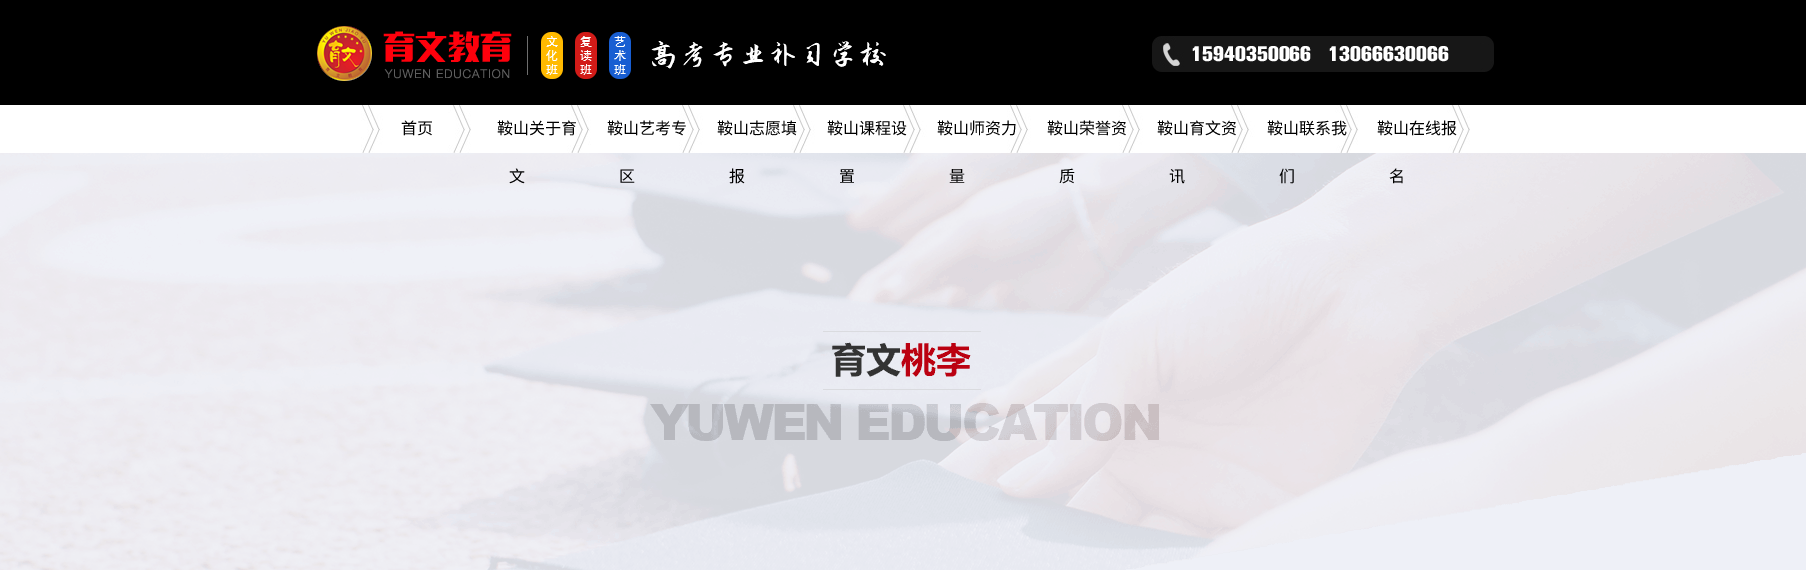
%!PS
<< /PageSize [1806 570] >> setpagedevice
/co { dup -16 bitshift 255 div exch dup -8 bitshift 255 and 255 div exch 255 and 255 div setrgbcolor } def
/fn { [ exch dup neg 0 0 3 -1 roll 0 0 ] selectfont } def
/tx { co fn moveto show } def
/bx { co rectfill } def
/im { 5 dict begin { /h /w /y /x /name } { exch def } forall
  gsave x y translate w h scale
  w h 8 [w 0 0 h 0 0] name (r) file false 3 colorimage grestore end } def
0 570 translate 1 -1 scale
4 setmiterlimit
0 0 1806 570 16#EEF0F7 bx
(media/1.raw) 0 0 1806 153 im
(media/2.raw) 317 26 569 55 im
(media/3.raw) 1152 36 342 36 im
(media/4.raw) 361 105 1109 48 im
(media/5.raw) 0 153 1806 417 im
(15940350066   13066630066) 1191 61 /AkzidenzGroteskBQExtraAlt-Bold 21 16#FFFFFF tx
(首页) 401 134 /NotoSansCJKSC-Regular 16 16#000000 tx
(鞍山关于育) 497 134 /NotoSansCJKSC-Regular 16 16#000000 tx
(文) 509 182 /NotoSansCJKSC-Regular 16 16#000000 tx
(鞍山艺考专) 607 134 /NotoSansCJKSC-Regular 16 16#000000 tx
(区) 619 182 /NotoSansCJKSC-Regular 16 16#000000 tx
(鞍山志愿填) 717 134 /NotoSansCJKSC-Regular 16 16#000000 tx
(报) 729 182 /NotoSansCJKSC-Regular 16 16#000000 tx
(鞍山课程设) 827 134 /NotoSansCJKSC-Regular 16 16#000000 tx
(置) 839 182 /NotoSansCJKSC-Regular 16 16#000000 tx
(鞍山师资力) 937 134 /NotoSansCJKSC-Regular 16 16#000000 tx
(量) 949 182 /NotoSansCJKSC-Regular 16 16#000000 tx
(鞍山荣誉资) 1047 134 /NotoSansCJKSC-Regular 16 16#000000 tx
(质) 1059 182 /NotoSansCJKSC-Regular 16 16#000000 tx
(鞍山育文资) 1157 134 /NotoSansCJKSC-Regular 16 16#000000 tx
(讯) 1169 182 /NotoSansCJKSC-Regular 16 16#000000 tx
(鞍山联系我) 1267 134 /NotoSansCJKSC-Regular 16 16#000000 tx
(们) 1279 182 /NotoSansCJKSC-Regular 16 16#000000 tx
(鞍山在线报) 1377 134 /NotoSansCJKSC-Regular 16 16#000000 tx
(名) 1389 182 /NotoSansCJKSC-Regular 16 16#000000 tx
showpage
